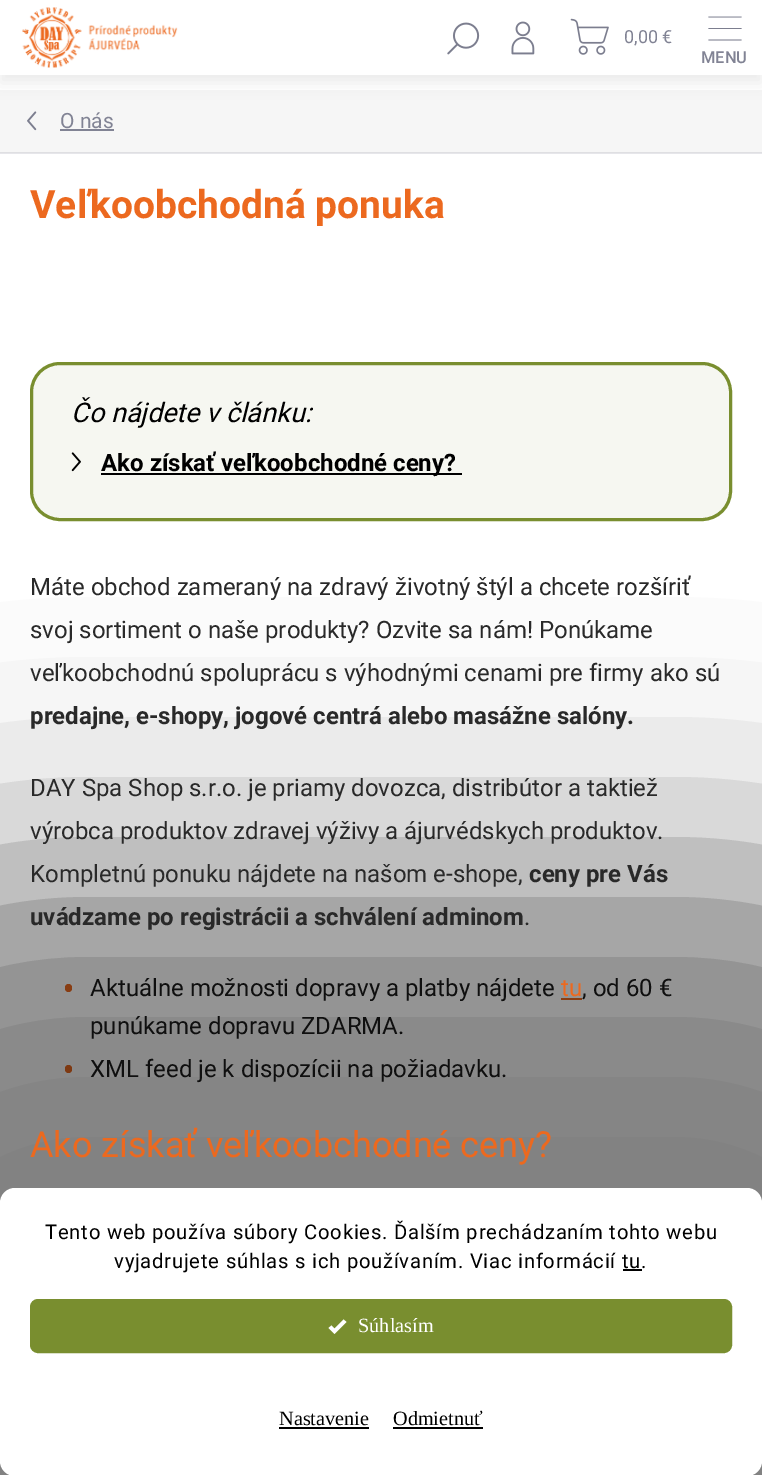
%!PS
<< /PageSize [762 1475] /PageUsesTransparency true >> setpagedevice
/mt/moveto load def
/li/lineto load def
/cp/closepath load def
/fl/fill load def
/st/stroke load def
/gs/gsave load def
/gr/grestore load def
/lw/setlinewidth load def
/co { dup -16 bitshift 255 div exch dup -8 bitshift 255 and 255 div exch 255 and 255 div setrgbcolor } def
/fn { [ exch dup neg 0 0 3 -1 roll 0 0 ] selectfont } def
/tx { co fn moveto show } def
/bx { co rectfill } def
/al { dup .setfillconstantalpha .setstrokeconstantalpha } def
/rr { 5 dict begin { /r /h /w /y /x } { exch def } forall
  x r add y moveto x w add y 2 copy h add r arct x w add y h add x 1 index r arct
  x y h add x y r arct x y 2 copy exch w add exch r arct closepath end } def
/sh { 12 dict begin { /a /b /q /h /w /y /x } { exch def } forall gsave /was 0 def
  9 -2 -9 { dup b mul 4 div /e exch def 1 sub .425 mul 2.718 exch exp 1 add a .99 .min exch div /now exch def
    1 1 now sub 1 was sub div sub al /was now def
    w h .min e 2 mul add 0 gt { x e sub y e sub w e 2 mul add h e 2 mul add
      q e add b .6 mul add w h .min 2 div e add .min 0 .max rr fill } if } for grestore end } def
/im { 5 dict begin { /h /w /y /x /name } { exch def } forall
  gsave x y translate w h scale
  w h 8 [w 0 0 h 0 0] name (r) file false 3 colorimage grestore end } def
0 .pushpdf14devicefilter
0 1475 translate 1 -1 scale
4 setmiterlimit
0 0 762 1475 16#FFFFFF bx
0 153 762 1 16#E6E6EA bx
0 90 762 62 16#F6F6F6 bx
16#000000 co
0 8 762 75 0 7.5 .07 sh
0 0 762 75 16#FFFFFF bx
(media/1.raw) 22 7 156 61 im
(media/2.raw) 447 22 33 33 im
(media/3.raw) 511 21 24 34 im
(media/4.raw) 570 18 39 37 im
(media/5.raw) 708 16 34 25 im
0 152 762 1 16#DFDFE2 bx
(media/6.raw) 27 111 10 20 im
60 129 54 2 16#818394 bx
16#F6F7F1 co
31.5 363.5 699 156 28.5 rr gs fl gr
16#798E2F co
3 lw
st
(media/7.raw) 71 452 10 20 im
101 473 361 2 16#000000 bx
16#EC691F co
65 984 7 8 3.5 rr fl
561 998 21 2 16#EC691F bx
65 1065 7 8 3.5 rr fl
16#000000 co
-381 867 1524 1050 396 120 .5 sh
16#FFFFFF co
0 1188 762 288 15 rr fl
623 1269 19 2 16#000000 bx
16#798E2F co
31 1300 700 52 7 rr gs fl gr
2 lw
st
16#FFFFFF co
343.5 1319.5 mt 334.5 1328.5 li 331.5 1325.5 li 328.5 1328 li 334.5 1334 li 346.5 1322 li cp fl
279 1427 90 2 16#000000 bx
393 1427 90 2 16#000000 bx
(0,00 €) 624 43 /Roboto-Regular 18 16#818394 tx
(MENU) 701 63 /Roboto-Medium 16.5 16#818394 tx
(O nás) 60 128 /Roboto-Regular 21 16#818394 tx
(Veľkoobchodná ponuka) 30 218 /Roboto-Bold 39 16#EC691F tx
(Čo nájdete v článku:) 71 422 /Roboto-Italic 27 16#000000 tx
(Ako získať veľkoobchodné ceny?) 101 471 /Roboto-Bold 24 16#000000 tx
(Máte obchod zameraný na zdravý životný štýl a chcete rozšíriť) 30 595 /Roboto-Regular 24 16#292929 tx
(svoj sortiment o naše produkty? Ozvite sa nám! Ponúkame) 30 638 /Roboto-Regular 24 16#292929 tx
(veľkoobchodnú spoluprácu s výhodnými cenami pre firmy ako sú) 30 681 /Roboto-Regular 24 16#292929 tx
(predajne, e-shopy, jogové centrá alebo masážne salóny.) 30 724 /Roboto-Bold 24 16#292929 tx
(DAY Spa Shop s.r.o. je priamy dovozca, distribútor a taktiež) 30 796 /Roboto-Regular 24 16#292929 tx
(výrobca produktov zdravej výživy a ájurvédskych produktov.) 30 839 /Roboto-Regular 24 16#292929 tx
(Kompletnú ponuku nájdete na našom e-shope,) 30 882 /Roboto-Regular 24 16#292929 tx
(ceny pre Vás) 529 882 /Roboto-Bold 24 16#292929 tx
(uvádzame po registrácii a schválení adminom) 30 925 /Roboto-Bold 24 16#292929 tx
(.) 524 925 /Roboto-Regular 24 16#292929 tx
(Aktuálne možnosti dopravy a platby nájdete) 90 996 /Roboto-Regular 24 16#0F0F0F tx
(tu) 561 996 /Roboto-Regular 24 16#EC691F tx
(, od 60 €) 582 996 /Roboto-Regular 24 16#0F0F0F tx
(punúkame dopravu ZDARMA.) 90 1034 /Roboto-Regular 24 16#0F0F0F tx
(XML feed je k dispozícii na požiadavku.) 90 1077 /Roboto-Regular 24 16#0F0F0F tx
(Ako získať veľkoobchodné ceny?) 30 1157 /Roboto-Regular 36 16#EC691F tx
/Roboto-Regular 20.25 fn
16#000000 co
45 1239 mt .75 0 (Tento web používa súbory Cookies. Ďalším prechádzaním tohto webu) ashow
114 1268 mt .75 0 (vyjadrujete súhlas s ich používaním. Viac informácií tu.) ashow
(Súhlasím) 358 1332 /LiberationSerif-Regular 20.25 16#FFFFFF tx
(Nastavenie) 279 1425 /LiberationSerif-Regular 20.25 16#000000 tx
(Odmietnuť) 393 1425 /LiberationSerif-Regular 20.25 16#000000 tx
.poppdf14devicefilter showpage
